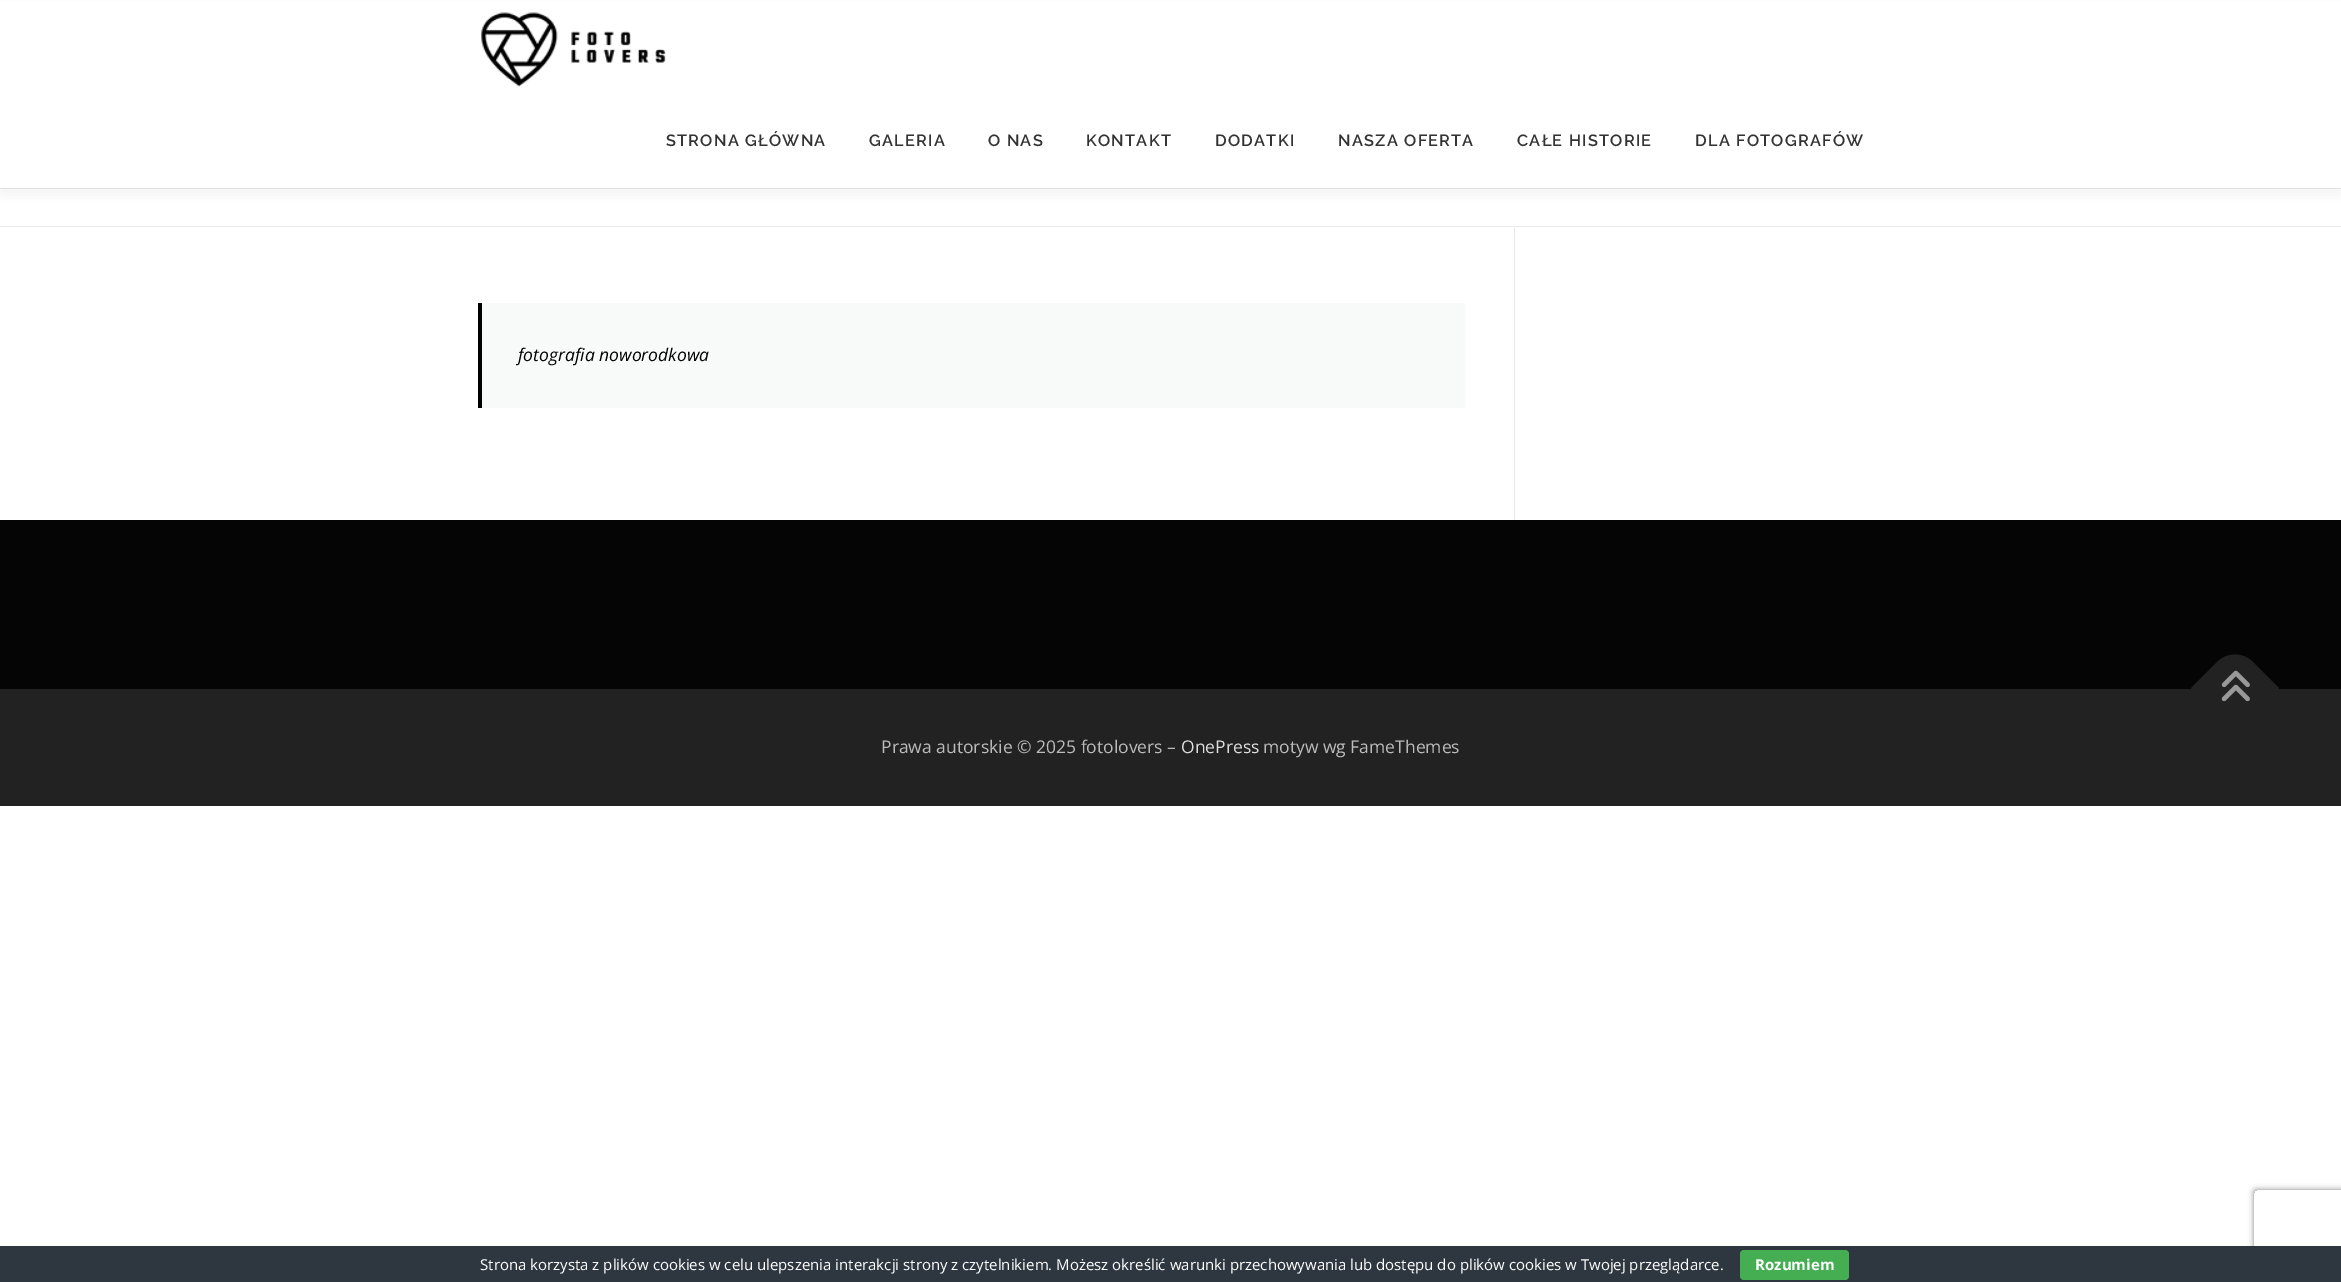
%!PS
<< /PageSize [2341 1282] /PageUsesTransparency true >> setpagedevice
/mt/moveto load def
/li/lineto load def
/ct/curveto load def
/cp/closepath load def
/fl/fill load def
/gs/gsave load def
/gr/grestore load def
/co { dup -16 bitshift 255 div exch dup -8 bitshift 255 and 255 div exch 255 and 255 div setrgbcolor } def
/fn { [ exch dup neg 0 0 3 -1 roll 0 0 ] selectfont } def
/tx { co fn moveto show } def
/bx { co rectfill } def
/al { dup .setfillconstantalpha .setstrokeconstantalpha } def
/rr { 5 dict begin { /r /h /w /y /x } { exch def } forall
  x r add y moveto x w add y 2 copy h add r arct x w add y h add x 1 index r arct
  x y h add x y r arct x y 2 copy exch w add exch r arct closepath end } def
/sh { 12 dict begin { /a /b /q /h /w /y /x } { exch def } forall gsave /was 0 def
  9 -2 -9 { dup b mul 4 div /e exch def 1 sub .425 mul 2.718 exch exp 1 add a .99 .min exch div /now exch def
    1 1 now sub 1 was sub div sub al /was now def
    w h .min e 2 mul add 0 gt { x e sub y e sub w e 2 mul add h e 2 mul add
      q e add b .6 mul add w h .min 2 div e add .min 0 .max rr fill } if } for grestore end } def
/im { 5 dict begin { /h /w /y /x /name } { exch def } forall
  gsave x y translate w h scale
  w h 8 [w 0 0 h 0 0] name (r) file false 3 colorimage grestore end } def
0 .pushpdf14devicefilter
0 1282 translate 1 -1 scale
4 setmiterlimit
0 0 2341 1282 16#FFFFFF bx
0 188 2341 1 16#E9E9E9 bx
16#323232 co
0 6 2341 188 0 6 .06 sh
0 1 2341 187 16#FFFFFF bx
(media/1.raw) 481 12 185 75 im
0 226 2341 1 16#E9E9E9 bx
1514 228 1 292 16#E9E9E9 bx
482 303 983 105 16#F8F9F9 bx
478 303 4 105 16#000000 bx
0 520 2341 169 16#050505 bx
0 689 2341 117 16#222222 bx
2191 688 mt 2217 662 li 2227 652 2243 652 2253 662 ct 2279 688 li 2235 733 li cp fl
(media/2.raw) 2221 670 29 32 im
gs
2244 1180 mt 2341 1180 li 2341 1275 li 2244 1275 li cp 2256.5 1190 mt 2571.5 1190 li 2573 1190 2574 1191 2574 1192.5 ct 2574 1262.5 li 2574 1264 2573 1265 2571.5 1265 ct 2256.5 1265 li 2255 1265 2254 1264 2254 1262.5 ct 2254 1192.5 li 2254 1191 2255 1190 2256.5 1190 ct cp eoclip newpath
16#808080 co
2254 1190 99 75 2.5 3 1 sh
gr
0 1246 2341 36 16#2E363F bx
16#45AE52 co
1740 1250 109 30 4 rr fl
/Raleway-SemiBold 16.25 fn
16#333333 co
666 146 mt 1.25 0 (STRONA GŁÓWNA) ashow
869 146 mt 1.25 0 (GALERIA) ashow
988 146 mt 1.25 0 (O NAS) ashow
1086 146 mt 1.25 0 (KONTAKT) ashow
1215 146 mt 1.25 0 (DODATKI) ashow
1338 146 mt 1.25 0 (NASZA OFERTA) ashow
1517 146 mt 1.25 0 (CAŁE HISTORIE) ashow
1695 146 mt 1.25 0 (DLA FOTOGRAFÓW) ashow
(fotografia noworodkowa) 518 361 /OpenSans-Italic 17.5 16#000000 tx
(Prawa autorskie © 2025 fotolovers –) 881 753 /OpenSans-Regular 17.5 16#BBBBBB tx
(OnePress) 1181 753 /OpenSans-Regular 17.5 16#DDDDDD tx
(motyw wg FameThemes) 1263 753 /OpenSans-Regular 17.5 16#BBBBBB tx
(Strona korzysta z plików cookies w celu ulepszenia interakcji strony z czytelnikiem. Możesz określić warunki przechowywania lub dostępu do plików cookies w Twojej przeglądarce.) 480 1270 /OpenSans-Regular 15 16#FFFFFF tx
(Rozumiem) 1755 1270 /OpenSans-Bold 15 16#FFFFFF tx
.poppdf14devicefilter showpage
